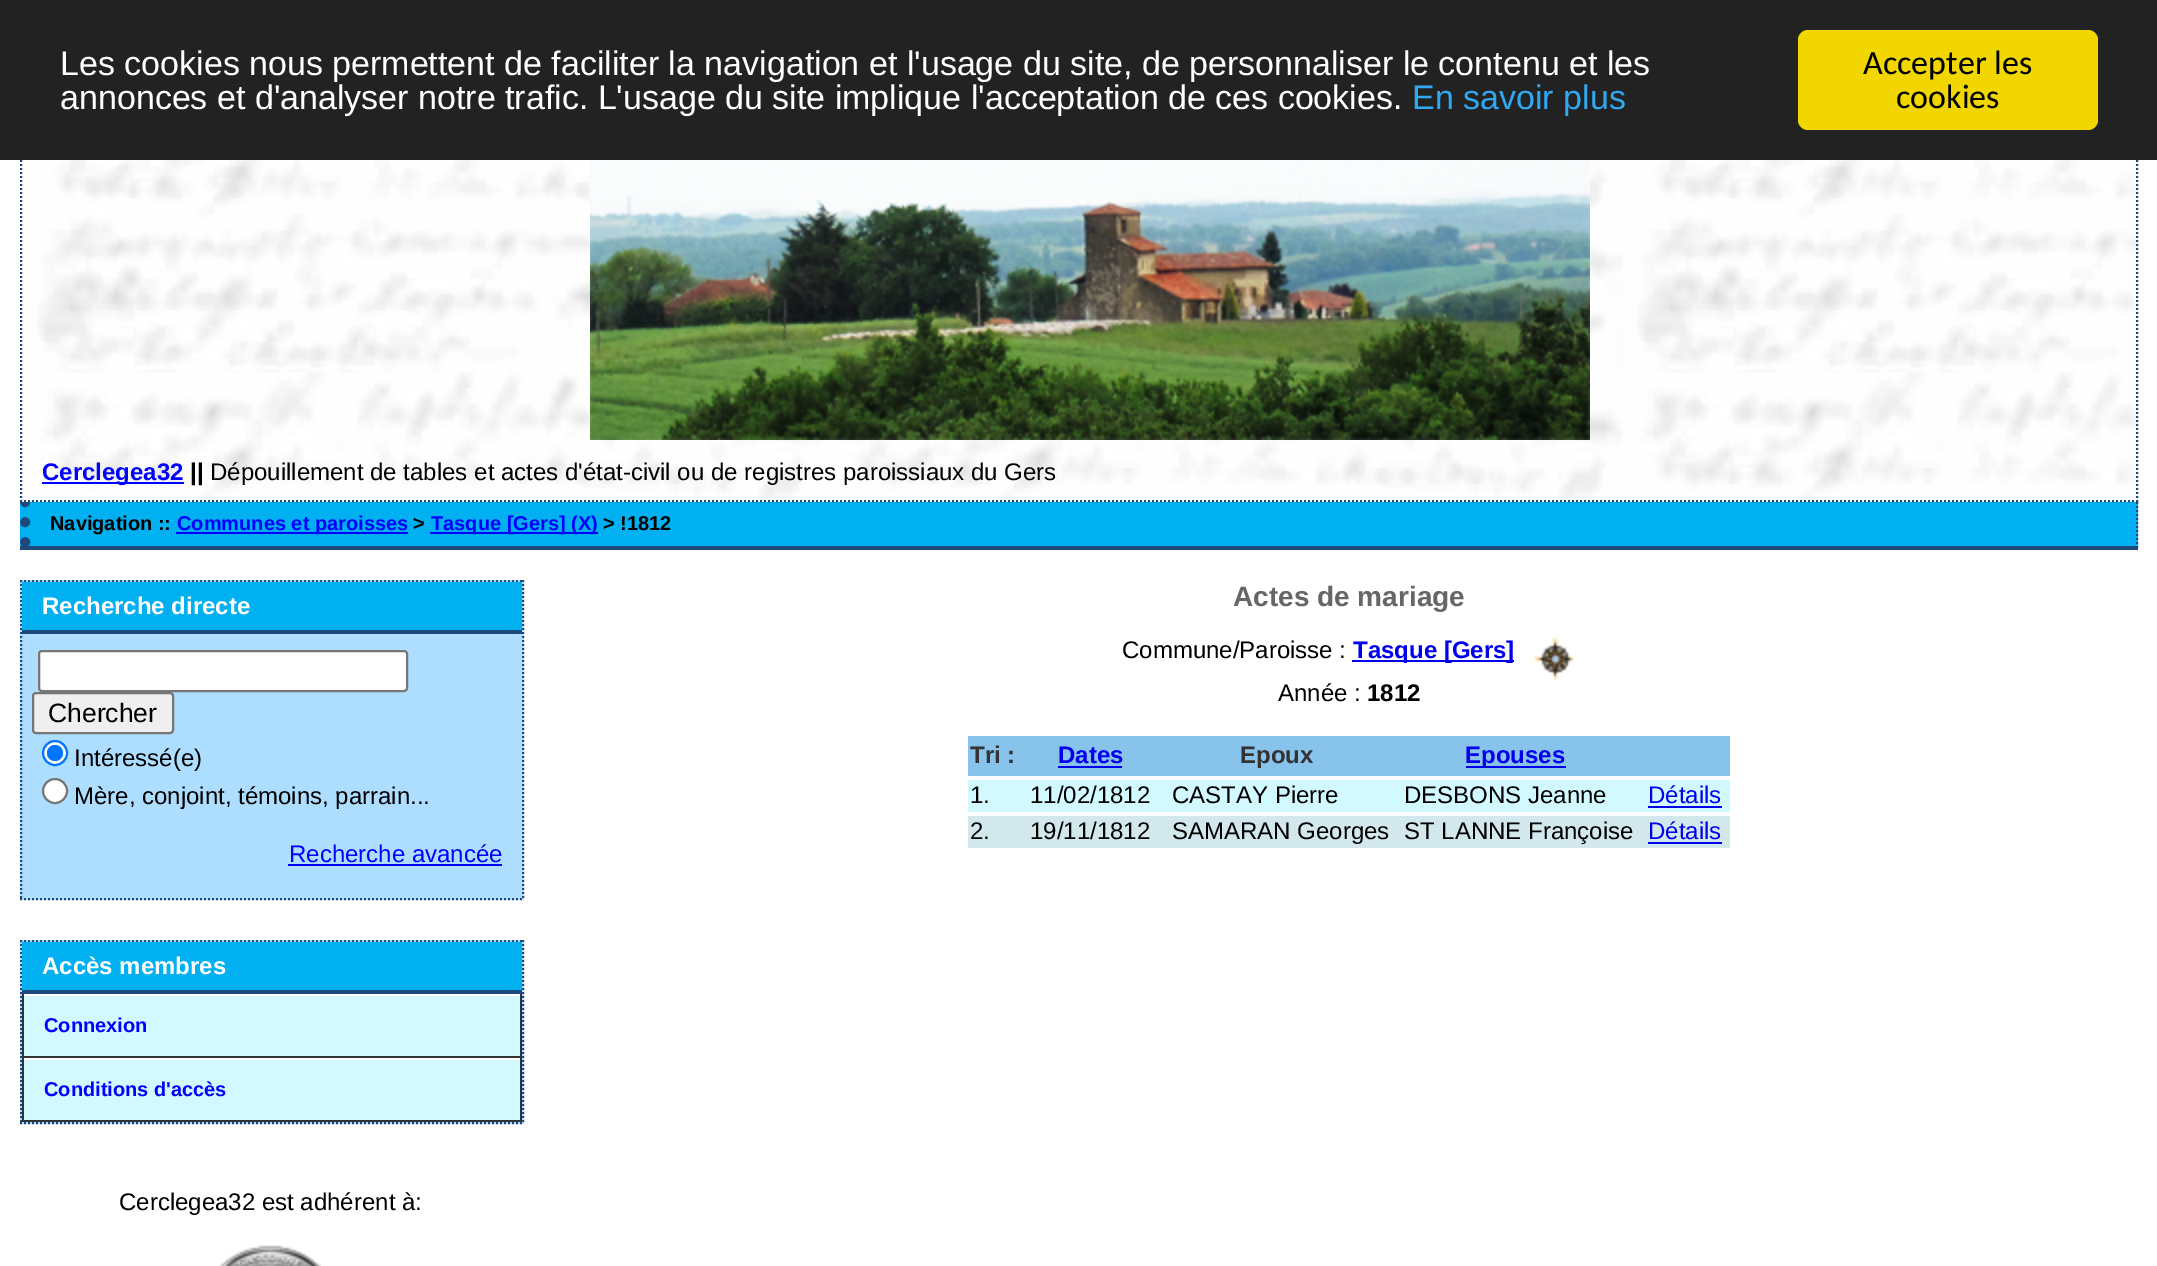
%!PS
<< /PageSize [2157 1266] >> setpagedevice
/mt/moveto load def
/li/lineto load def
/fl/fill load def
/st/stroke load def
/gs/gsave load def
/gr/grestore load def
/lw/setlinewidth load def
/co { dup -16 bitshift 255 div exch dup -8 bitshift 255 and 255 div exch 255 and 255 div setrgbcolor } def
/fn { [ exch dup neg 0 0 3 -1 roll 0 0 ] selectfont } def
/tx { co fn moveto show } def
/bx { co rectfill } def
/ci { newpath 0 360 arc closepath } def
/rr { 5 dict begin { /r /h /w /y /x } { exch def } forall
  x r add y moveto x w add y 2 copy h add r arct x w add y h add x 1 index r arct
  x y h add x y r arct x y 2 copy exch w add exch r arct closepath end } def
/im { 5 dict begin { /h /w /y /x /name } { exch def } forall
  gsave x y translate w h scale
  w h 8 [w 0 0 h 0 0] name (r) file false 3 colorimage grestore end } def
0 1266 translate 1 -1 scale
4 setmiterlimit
0 0 2157 1266 16#FFFFFF bx
20 502 2118 44 16#00B0F0 bx
16#1F497D co
2 lw
[2 2] 0 setdash
2137 502 mt 2137 550 li st
20 546 2118 4 16#1F497D bx
10 lw
1 setlinecap
[0 20] 0 setdash
25 502 mt 25 550 li st
(media/1.raw) 20 160 2118 342 im
2 lw
0 setlinecap
[2 2] 0 setdash
2137 84 mt 2137 502 li st
20 501 mt 2138 501 li st
21 84 mt 21 502 li st
0 0 2157 160 16#222222 bx
16#F1D600 co
1798 30 300 100 10 rr fl
(media/2.raw) 590 160 1000 280 im
42 482 142 2 16#0000FF bx
176 532 232 2 16#0000FF bx
430 532 168 2 16#0000FF bx
20 580 504 320 16#AEDEFF bx
16#1F497D co
20 581 mt 524 581 li st
523 580 mt 523 900 li st
20 899 mt 524 899 li st
21 580 mt 21 900 li st
22 582 500 48 16#00B0F0 bx
22 630 500 4 16#1F497D bx
16#FFFFFF co
39 651 368 40 3 rr gs fl gr
16#767676 co
[] 0 setdash
st
16#EFEFEF co
33 693 140 40 3 rr gs fl gr
16#767676 co
st
16#FFFFFF co
55 753 12 ci gs fl gr
16#0075FF co
st
55 753 8 ci fl
16#FFFFFF co
55 791 12 ci gs fl gr
16#767676 co
st
288 864 214 2 16#0000FF bx
20 940 504 184 16#AEDEFF bx
16#1F497D co
[2 2] 0 setdash
20 941 mt 524 941 li st
523 940 mt 523 1124 li st
20 1123 mt 524 1123 li st
21 940 mt 21 1124 li st
22 942 500 48 16#00B0F0 bx
22 990 500 4 16#1F497D bx
24 996 496 60 16#D1F9FF bx
22 994 500 2 16#FFFFFF bx
520 994 2 64 16#333333 bx
22 1056 500 2 16#333333 bx
22 994 2 64 16#333333 bx
24 1060 496 60 16#D1F9FF bx
22 1058 500 2 16#FFFFFF bx
520 1058 2 64 16#333333 bx
22 1120 500 2 16#333333 bx
22 1058 2 64 16#333333 bx
(media/3.raw) 218 1245 104 21 im
1352 660 162 2 16#0000EE bx
(media/4.raw) 1534 638 41 42 im
968 736 762 40 16#88C3EB bx
1058 766 64 2 16#0000EE bx
1466 766 100 2 16#0000EE bx
968 780 762 32 16#D1F9FF bx
1648 806 74 2 16#0000EE bx
968 816 762 32 16#D3E8EC bx
1648 842 74 2 16#0000EE bx
(Les cookies nous permettent de faciliter la navigation et l'usage du site, de personnaliser le contenu et les) 60 75 /LiberationSans-Regular 34 16#FFFFFF tx
(annonces et d'analyser notre trafic. L'usage du site implique l'acceptation de ces cookies.) 60 109 /LiberationSans-Regular 34 16#FFFFFF tx
(En savoir plus) 1412 109 /LiberationSans-Regular 34 16#31A8F0 tx
(Accepter les) 1863 74 /Carlito-Regular 34 16#000000 tx
(cookies) 1896 108 /Carlito-Regular 34 16#000000 tx
(Cerclegea32) 42 480 /LiberationSans-Bold 24 16#0000FF tx
(||) 190 480 /LiberationSans-Bold 24 16#000000 tx
(Dépouillement de tables et actes d'état-civil ou de registres paroissiaux du Gers) 210 480 /LiberationSans-Regular 24 16#000000 tx
(Navigation ::) 50 530 /LiberationSans-Bold 20 16#000000 tx
(Communes et paroisses) 177 530 /LiberationSans-Bold 20 16#0000FF tx
(>) 413 530 /LiberationSans-Bold 20 16#000000 tx
(Tasque [Gers] \(X\)) 431 530 /LiberationSans-Bold 20 16#0000FF tx
(> !1812) 603 530 /LiberationSans-Bold 20 16#000000 tx
(Recherche directe) 42 614 /LiberationSans-Bold 24 16#FFFFFF tx
(Chercher) 48 722 /LiberationSans-Regular 26.5 16#000000 tx
(Intéressé\(e\)) 74 766 /LiberationSans-Regular 24 16#000000 tx
(Mère, conjoint, témoins, parrain...) 74 804 /LiberationSans-Regular 24 16#000000 tx
(Recherche avancée) 289 862 /LiberationSans-Regular 24 16#0000FF tx
(Accès membres) 42 974 /LiberationSans-Bold 24 16#FFFFFF tx
(Connexion) 44 1032 /LiberationSans-Bold 20 16#0000FF tx
(Conditions d'accès) 44 1096 /LiberationSans-Bold 20 16#0000FF tx
(Cerclegea32 est adhérent à:) 119 1210 /LiberationSans-Regular 24 16#000000 tx
(Actes de mariage) 1233 606 /LiberationSans-Bold 28 16#666666 tx
(Commune/Paroisse :) 1122 658 /LiberationSans-Regular 24 16#000000 tx
(Tasque [Gers]) 1353 658 /LiberationSans-Bold 24 16#0000EE tx
(Année :) 1278 701 /LiberationSans-Regular 24 16#000000 tx
(1812) 1367 701 /LiberationSans-Bold 24 16#000000 tx
(Tri :) 970 763 /LiberationSans-Bold 24 16#333333 tx
(Dates) 1058 763 /LiberationSans-Bold 24 16#0000EE tx
(Epoux) 1240 763 /LiberationSans-Bold 24 16#333333 tx
(Epouses) 1465 763 /LiberationSans-Bold 24 16#0000EE tx
(1.) 970 803 /LiberationSans-Regular 24 16#000000 tx
(11/02/1812) 1030 803 /LiberationSans-Regular 24 16#000000 tx
(CASTAY Pierre) 1172 803 /LiberationSans-Regular 24 16#000000 tx
(DESBONS Jeanne) 1404 803 /LiberationSans-Regular 24 16#000000 tx
(Détails) 1648 803 /LiberationSans-Regular 24 16#0000EE tx
(2.) 970 839 /LiberationSans-Regular 24 16#000000 tx
(19/11/1812) 1030 839 /LiberationSans-Regular 24 16#000000 tx
(SAMARAN Georges) 1172 839 /LiberationSans-Regular 24 16#000000 tx
(ST LANNE Françoise) 1404 839 /LiberationSans-Regular 24 16#000000 tx
(Détails) 1648 839 /LiberationSans-Regular 24 16#0000EE tx
showpage
